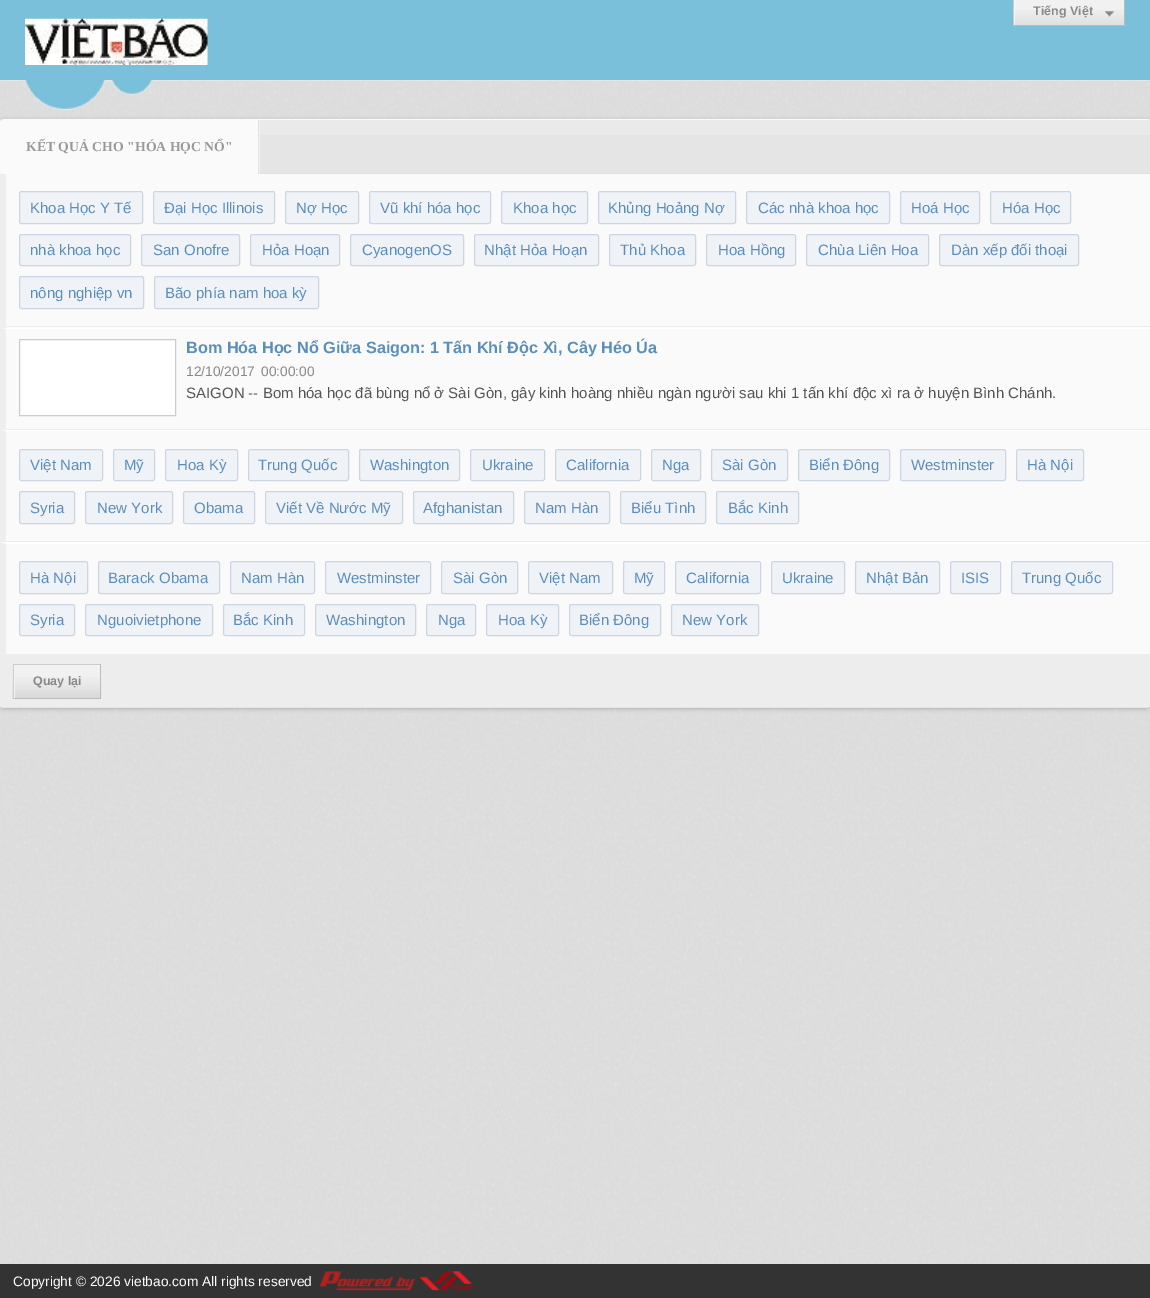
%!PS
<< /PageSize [1150 1298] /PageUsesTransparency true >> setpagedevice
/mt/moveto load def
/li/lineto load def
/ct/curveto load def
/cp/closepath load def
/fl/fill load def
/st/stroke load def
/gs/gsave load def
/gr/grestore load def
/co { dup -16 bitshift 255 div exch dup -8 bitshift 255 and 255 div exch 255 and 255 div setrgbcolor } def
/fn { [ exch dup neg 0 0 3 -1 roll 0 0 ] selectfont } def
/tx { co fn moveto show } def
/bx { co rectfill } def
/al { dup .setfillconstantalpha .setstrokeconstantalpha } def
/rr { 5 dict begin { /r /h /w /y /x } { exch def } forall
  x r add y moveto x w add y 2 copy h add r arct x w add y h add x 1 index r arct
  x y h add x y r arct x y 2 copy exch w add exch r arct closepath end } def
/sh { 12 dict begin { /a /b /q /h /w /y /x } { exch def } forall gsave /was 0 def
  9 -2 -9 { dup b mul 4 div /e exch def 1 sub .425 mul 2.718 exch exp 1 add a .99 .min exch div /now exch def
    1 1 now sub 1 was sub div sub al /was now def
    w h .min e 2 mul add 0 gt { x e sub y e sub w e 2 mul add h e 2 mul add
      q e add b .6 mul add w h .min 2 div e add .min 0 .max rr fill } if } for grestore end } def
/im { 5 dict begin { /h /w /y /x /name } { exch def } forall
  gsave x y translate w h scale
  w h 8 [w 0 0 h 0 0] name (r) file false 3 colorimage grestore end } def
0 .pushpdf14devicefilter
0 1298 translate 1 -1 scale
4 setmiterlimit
0 0 1150 1298 16#FFFFFF bx
(media/1.raw) 0 81 1150 1183 im
0 0 1150 80 16#7AC0DA bx
0 80 1150 1 16#E5E5E5 bx
1015 0 109 25 16#F1F1F1 bx
(media/2.raw) 1012 10 112 16 im
gs
1014 0 110 25 rectclip
16#F5F5F5 co
890 -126 mt 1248 -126 li 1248 149 li 890 149 li cp 1015 -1 mt 1125 -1 li 1125 26 li 1015 26 li cp eofill
gr
1124 0 1 26 16#BBBBBB bx
1013 25 112 1 16#BBBBBB bx
1013 0 1 26 16#CCCCCC bx
(media/3.raw) 1104 11 10 6 im
(media/4.raw) 25 18 183 47 im
(media/5.raw) 25 80 127 30 im
16#000000 co
0 120 1150 589 4 2 .2 sh
16#F1F1F1 co
0 119 1150 589 4 rr fl
3 119 1146 1 16#FAFAFA bx
260 135 890 38 16#E5E5E5 bx
0 120 1150 15 16#EAEAEA bx
260 173 890 1 16#E1E1E1 bx
259 120 1 15 16#F2F2F2 bx
16#FAFAFA co
4 120 mt 259 120 li 259 174 li 0 174 li 0 124 li 0 122 2 120 4 120 ct cp fl
258 120 1 54 16#E1E1E1 bx
16#FAFAFA co
4 120 mt 2 120 1 122 1 124 ct 1 174 li 0 174 li 0 124 li 0 122 2 120 4 120 ct cp fl
0 174 1150 480 16#FAFAFA bx
0 326 1150 1 16#EEEEEE bx
0 174 6 154 16#EEEEEE bx
16#EFF2F7 co
19.5 191.5 123 32 2 rr gs fl gr
16#CCD5E4 co
st
16#EFF2F7 co
153.5 191.5 121 32 2 rr gs fl gr
16#CCD5E4 co
st
16#EFF2F7 co
285.5 191.5 73 32 2 rr gs fl gr
16#CCD5E4 co
st
16#EFF2F7 co
369.5 191.5 121 32 2 rr gs fl gr
16#CCD5E4 co
st
16#EFF2F7 co
501.5 191.5 86 32 2 rr gs fl gr
16#CCD5E4 co
st
16#EFF2F7 co
598.5 191.5 137 32 2 rr gs fl gr
16#CCD5E4 co
st
16#EFF2F7 co
746.5 191.5 143 32 2 rr gs fl gr
16#CCD5E4 co
st
16#EFF2F7 co
900.5 191.5 79 32 2 rr gs fl gr
16#CCD5E4 co
st
16#EFF2F7 co
990.5 191.5 80 32 2 rr gs fl gr
16#CCD5E4 co
st
16#EFF2F7 co
19.5 234.5 111 31 2 rr gs fl gr
16#CCD5E4 co
st
16#EFF2F7 co
141.5 234.5 98 31 2 rr gs fl gr
16#CCD5E4 co
st
16#EFF2F7 co
250.5 234.5 89 31 2 rr gs fl gr
16#CCD5E4 co
st
16#EFF2F7 co
350.5 234.5 113 31 2 rr gs fl gr
16#CCD5E4 co
st
16#EFF2F7 co
474.5 234.5 124 31 2 rr gs fl gr
16#CCD5E4 co
st
16#EFF2F7 co
609.5 234.5 86 31 2 rr gs fl gr
16#CCD5E4 co
st
16#EFF2F7 co
706.5 234.5 89 31 2 rr gs fl gr
16#CCD5E4 co
st
16#EFF2F7 co
806.5 234.5 122 31 2 rr gs fl gr
16#CCD5E4 co
st
16#EFF2F7 co
939.5 234.5 139 31 2 rr gs fl gr
16#CCD5E4 co
st
16#EFF2F7 co
19.5 276.5 124 32 2 rr gs fl gr
16#CCD5E4 co
st
16#EFF2F7 co
154.5 276.5 164 32 2 rr gs fl gr
16#CCD5E4 co
st
16#FFFFFF co
0 328 mt 1150 328 li 1150 329 li 6 329 li cp fl
0 429 1150 1 16#EEEEEE bx
0 430 mt 0 328 li 6 329 li 6 429 li cp fl
16#FFFFFF co
19.5 339.5 mt 175.5 339.5 li 175.5 415.5 li 19.5 415.5 li cp gs fl gr
16#CCCCCC co
st
16#FFFFFF co
0 430 mt 1150 430 li 1150 431 li 6 431 li cp fl
0 541 1150 1 16#EEEEEE bx
0 542 mt 0 430 li 6 431 li 6 541 li cp fl
16#EFF2F7 co
19.5 449.5 83 31 2 rr gs fl gr
16#CCD5E4 co
st
16#EFF2F7 co
113.5 449.5 41 31 2 rr gs fl gr
16#CCD5E4 co
st
16#EFF2F7 co
165.5 449.5 72 31 2 rr gs fl gr
16#CCD5E4 co
st
16#EFF2F7 co
248.5 449.5 100 31 2 rr gs fl gr
16#CCD5E4 co
st
16#EFF2F7 co
359.5 449.5 100 31 2 rr gs fl gr
16#CCD5E4 co
st
16#EFF2F7 co
470.5 449.5 74 31 2 rr gs fl gr
16#CCD5E4 co
st
16#EFF2F7 co
555.5 449.5 85 31 2 rr gs fl gr
16#CCD5E4 co
st
16#EFF2F7 co
651.5 449.5 49 31 2 rr gs fl gr
16#CCD5E4 co
st
16#EFF2F7 co
711.5 449.5 76 31 2 rr gs fl gr
16#CCD5E4 co
st
16#EFF2F7 co
798.5 449.5 91 31 2 rr gs fl gr
16#CCD5E4 co
st
16#EFF2F7 co
900.5 449.5 105 31 2 rr gs fl gr
16#CCD5E4 co
st
16#EFF2F7 co
1016.5 449.5 67 31 2 rr gs fl gr
16#CCD5E4 co
st
16#EFF2F7 co
19.5 491.5 55 32 2 rr gs fl gr
16#CCD5E4 co
st
16#EFF2F7 co
85.5 491.5 87 32 2 rr gs fl gr
16#CCD5E4 co
st
16#EFF2F7 co
183.5 491.5 71 32 2 rr gs fl gr
16#CCD5E4 co
st
16#EFF2F7 co
265.5 491.5 137 32 2 rr gs fl gr
16#CCD5E4 co
st
16#EFF2F7 co
413.5 491.5 100 32 2 rr gs fl gr
16#CCD5E4 co
st
16#EFF2F7 co
524.5 491.5 85 32 2 rr gs fl gr
16#CCD5E4 co
st
16#EFF2F7 co
620.5 491.5 85 32 2 rr gs fl gr
16#CCD5E4 co
st
16#EFF2F7 co
716.5 491.5 82 32 2 rr gs fl gr
16#CCD5E4 co
st
16#FFFFFF co
0 542 mt 1150 542 li 1150 544 li 6 544 li cp fl
0 654 1150 1 16#EEEEEE bx
0 655 mt 0 542 li 6 544 li 6 654 li cp fl
16#EFF2F7 co
19.5 561.5 68 32 2 rr gs fl gr
16#CCD5E4 co
st
16#EFF2F7 co
98.5 561.5 121 32 2 rr gs fl gr
16#CCD5E4 co
st
16#EFF2F7 co
230.5 561.5 84 32 2 rr gs fl gr
16#CCD5E4 co
st
16#EFF2F7 co
325.5 561.5 105 32 2 rr gs fl gr
16#CCD5E4 co
st
16#EFF2F7 co
441.5 561.5 76 32 2 rr gs fl gr
16#CCD5E4 co
st
16#EFF2F7 co
528.5 561.5 84 32 2 rr gs fl gr
16#CCD5E4 co
st
16#EFF2F7 co
623.5 561.5 41 32 2 rr gs fl gr
16#CCD5E4 co
st
16#EFF2F7 co
675.5 561.5 85 32 2 rr gs fl gr
16#CCD5E4 co
st
16#EFF2F7 co
771.5 561.5 73 32 2 rr gs fl gr
16#CCD5E4 co
st
16#EFF2F7 co
855.5 561.5 84 32 2 rr gs fl gr
16#CCD5E4 co
st
16#EFF2F7 co
950.5 561.5 50 32 2 rr gs fl gr
16#CCD5E4 co
st
16#EFF2F7 co
1011.5 561.5 101 32 2 rr gs fl gr
16#CCD5E4 co
st
16#EFF2F7 co
19.5 604.5 55 31 2 rr gs fl gr
16#CCD5E4 co
st
16#EFF2F7 co
85.5 604.5 127 31 2 rr gs fl gr
16#CCD5E4 co
st
16#EFF2F7 co
223.5 604.5 81 31 2 rr gs fl gr
16#CCD5E4 co
st
16#EFF2F7 co
315.5 604.5 100 31 2 rr gs fl gr
16#CCD5E4 co
st
16#EFF2F7 co
426.5 604.5 49 31 2 rr gs fl gr
16#CCD5E4 co
st
16#EFF2F7 co
486.5 604.5 72 31 2 rr gs fl gr
16#CCD5E4 co
st
16#EFF2F7 co
569.5 604.5 91 31 2 rr gs fl gr
16#CCD5E4 co
st
16#EFF2F7 co
671.5 604.5 87 31 2 rr gs fl gr
16#CCD5E4 co
st
16#E5E5E5 co
0 655 mt 1150 655 li 1150 704 li 1150 706 1148 708 1146 708 ct 4 708 li 2 708 0 706 0 704 ct cp fl
0 655 1150 52 16#EDEDED bx
15 666 85 32 16#F1F1F1 bx
(media/6.raw) 12 677 90 22 im
gs
14 665 86 33 rectclip
16#F5F5F5 co
-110 541 mt 224 541 li 224 821 li -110 821 li cp 15 666 mt 101 666 li 101 699 li 15 699 li cp eofill
gr
13 664 88 1 16#CCCCCC bx
100 664 1 35 16#BBBBBB bx
13 698 88 1 16#BBBBBB bx
13 664 1 35 16#CCCCCC bx
0 1264 1150 34 16#333333 bx
(media/7.raw) 318 1271 155 20 im
(Tiếng Việt) 1033 15 /LiberationSans-Bold 12.5 16#888888 tx
(KẾT QUẢ CHO "HÓA HỌC NỔ") 26 151 /LiberationSerif-Bold 13.75 16#999999 tx
(Khoa Học Y Tế) 30 213 /LiberationSans-Regular 15 16#5A8EBB tx
(Đại Học Illinois) 164 213 /LiberationSans-Regular 15 16#5A8EBB tx
(Nợ Học) 296 213 /LiberationSans-Regular 15 16#5A8EBB tx
(Vũ khí hóa học) 380 213 /LiberationSans-Regular 15 16#5A8EBB tx
(Khoa học) 513 213 /LiberationSans-Regular 15 16#5A8EBB tx
(Khủng Hoảng Nợ) 608 213 /LiberationSans-Regular 15 16#5A8EBB tx
(Các nhà khoa học) 758 213 /LiberationSans-Regular 15 16#5A8EBB tx
(Hoá Học) 911 213 /LiberationSans-Regular 15 16#5A8EBB tx
(Hóa Học) 1002 213 /LiberationSans-Regular 15 16#5A8EBB tx
(nhà khoa học) 30 255 /LiberationSans-Regular 15 16#5A8EBB tx
(San Onofre) 153 255 /LiberationSans-Regular 15 16#5A8EBB tx
(Hỏa Hoạn) 262 255 /LiberationSans-Regular 15 16#5A8EBB tx
(CyanogenOS) 362 255 /LiberationSans-Regular 15 16#5A8EBB tx
(Nhật Hỏa Hoạn) 484 255 /LiberationSans-Regular 15 16#5A8EBB tx
(Thủ Khoa) 620 255 /LiberationSans-Regular 15 16#5A8EBB tx
(Hoa Hồng) 718 255 /LiberationSans-Regular 15 16#5A8EBB tx
(Chùa Liên Hoa) 818 255 /LiberationSans-Regular 15 16#5A8EBB tx
(Dàn xếp đối thoại) 951 255 /LiberationSans-Regular 15 16#5A8EBB tx
(nông nghiệp vn) 30 298 /LiberationSans-Regular 15 16#5A8EBB tx
(Bão phía nam hoa kỳ) 165 298 /LiberationSans-Regular 15 16#5A8EBB tx
(Bom Hóa Học Nổ Giữa Saigon: 1 Tấn Khí Độc Xì, Cây Héo Úa) 186 353 /LiberationSans-Bold 16.25 16#5A8EBB tx
(12/10/2017) 186 376 /LiberationSans-Regular 13.75 16#888888 tx
(00:00:00) 261 376 /LiberationSans-Regular 13.75 16#888888 tx
(SAIGON -- Bom hóa học đã bùng nổ ở Sài Gòn, gây kinh hoàng nhiều ngàn người sau khi 1 tấn khí độc xì ra ở huyện Bình Chánh.) 186 398 /LiberationSans-Regular 15 16#555555 tx
(Việt Nam) 30 470 /LiberationSans-Regular 15 16#5A8EBB tx
(Mỹ) 124 470 /LiberationSans-Regular 15 16#5A8EBB tx
(Hoa Kỳ) 177 470 /LiberationSans-Regular 15 16#5A8EBB tx
(Trung Quốc) 258 470 /LiberationSans-Regular 15 16#5A8EBB tx
(Washington) 370 470 /LiberationSans-Regular 15 16#5A8EBB tx
(Ukraine) 482 470 /LiberationSans-Regular 15 16#5A8EBB tx
(California) 566 470 /LiberationSans-Regular 15 16#5A8EBB tx
(Nga) 662 470 /LiberationSans-Regular 15 16#5A8EBB tx
(Sài Gòn) 722 470 /LiberationSans-Regular 15 16#5A8EBB tx
(Biển Đông) 809 470 /LiberationSans-Regular 15 16#5A8EBB tx
(Westminster) 911 470 /LiberationSans-Regular 15 16#5A8EBB tx
(Hà Nội) 1027 470 /LiberationSans-Regular 15 16#5A8EBB tx
(Syria) 30 513 /LiberationSans-Regular 15 16#5A8EBB tx
(New York) 97 513 /LiberationSans-Regular 15 16#5A8EBB tx
(Obama) 194 513 /LiberationSans-Regular 15 16#5A8EBB tx
(Viết Về Nước Mỹ) 276 513 /LiberationSans-Regular 15 16#5A8EBB tx
(Afghanistan) 423 513 /LiberationSans-Regular 15 16#5A8EBB tx
(Nam Hàn) 535 513 /LiberationSans-Regular 15 16#5A8EBB tx
(Biểu Tình) 631 513 /LiberationSans-Regular 15 16#5A8EBB tx
(Bắc Kinh) 728 513 /LiberationSans-Regular 15 16#5A8EBB tx
(Hà Nội) 30 583 /LiberationSans-Regular 15 16#5A8EBB tx
(Barack Obama) 108 583 /LiberationSans-Regular 15 16#5A8EBB tx
(Nam Hàn) 241 583 /LiberationSans-Regular 15 16#5A8EBB tx
(Westminster) 337 583 /LiberationSans-Regular 15 16#5A8EBB tx
(Sài Gòn) 453 583 /LiberationSans-Regular 15 16#5A8EBB tx
(Việt Nam) 539 583 /LiberationSans-Regular 15 16#5A8EBB tx
(Mỹ) 634 583 /LiberationSans-Regular 15 16#5A8EBB tx
(California) 686 583 /LiberationSans-Regular 15 16#5A8EBB tx
(Ukraine) 782 583 /LiberationSans-Regular 15 16#5A8EBB tx
(Nhật Bản) 866 583 /LiberationSans-Regular 15 16#5A8EBB tx
(ISIS) 961 583 /LiberationSans-Regular 15 16#5A8EBB tx
(Trung Quốc) 1022 583 /LiberationSans-Regular 15 16#5A8EBB tx
(Syria) 30 625 /LiberationSans-Regular 15 16#5A8EBB tx
(Nguoivietphone) 97 625 /LiberationSans-Regular 15 16#5A8EBB tx
(Bắc Kinh) 233 625 /LiberationSans-Regular 15 16#5A8EBB tx
(Washington) 326 625 /LiberationSans-Regular 15 16#5A8EBB tx
(Nga) 438 625 /LiberationSans-Regular 15 16#5A8EBB tx
(Hoa Kỳ) 498 625 /LiberationSans-Regular 15 16#5A8EBB tx
(Biển Đông) 579 625 /LiberationSans-Regular 15 16#5A8EBB tx
(New York) 682 625 /LiberationSans-Regular 15 16#5A8EBB tx
(Quay lại) 33 685 /LiberationSans-Bold 12.5 16#888888 tx
(Copyright © 2026 vietbao.com All rights reserved) 13 1286 /LiberationSans-Regular 13.75 16#FFFFFF tx
.poppdf14devicefilter showpage
